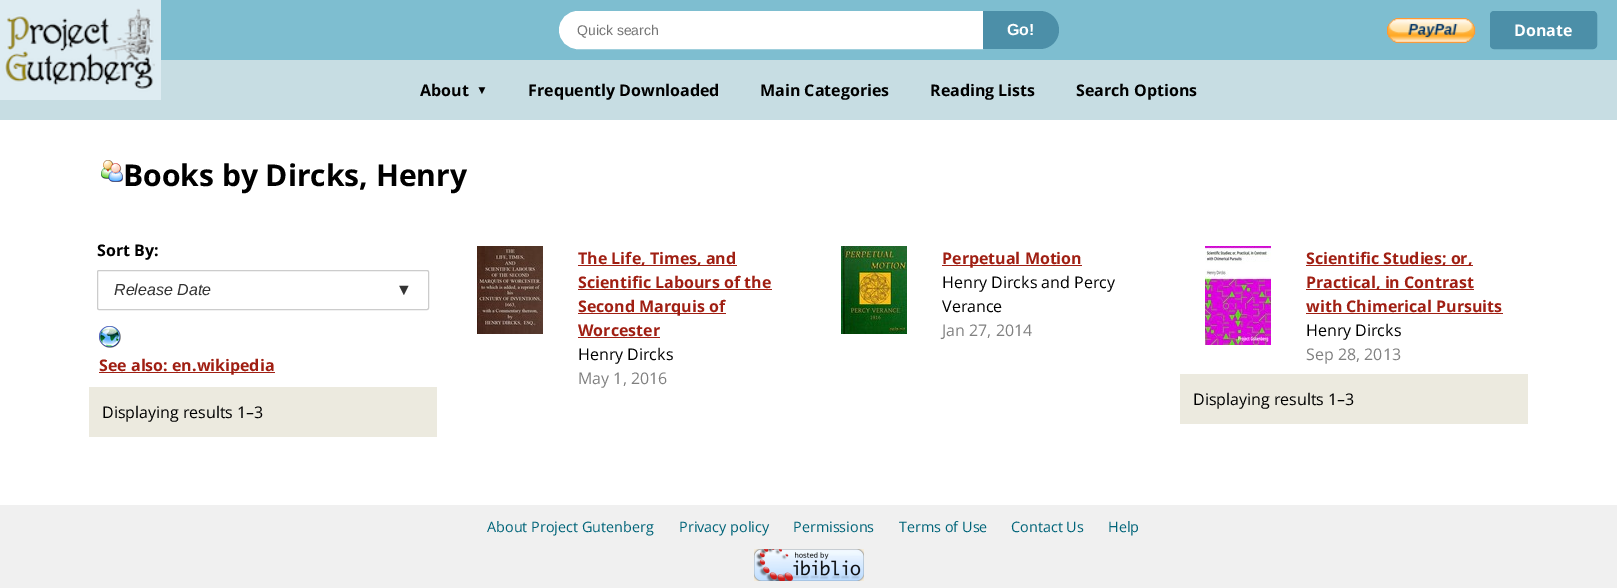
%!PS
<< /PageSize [1617 588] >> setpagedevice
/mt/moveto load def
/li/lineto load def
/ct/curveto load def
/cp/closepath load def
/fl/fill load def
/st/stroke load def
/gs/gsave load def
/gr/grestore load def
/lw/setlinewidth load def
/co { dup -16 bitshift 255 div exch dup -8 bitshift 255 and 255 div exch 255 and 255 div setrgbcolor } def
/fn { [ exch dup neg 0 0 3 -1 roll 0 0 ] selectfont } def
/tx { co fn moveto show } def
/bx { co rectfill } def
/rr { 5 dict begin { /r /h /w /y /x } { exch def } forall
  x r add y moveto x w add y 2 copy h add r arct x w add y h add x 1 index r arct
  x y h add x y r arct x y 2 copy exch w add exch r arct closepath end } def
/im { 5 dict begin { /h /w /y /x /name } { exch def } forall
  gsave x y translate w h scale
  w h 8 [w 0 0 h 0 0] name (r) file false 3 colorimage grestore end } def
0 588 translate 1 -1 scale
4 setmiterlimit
0 0 1617 588 16#FFFFFF bx
0 60 1617 60 16#C7DDE3 bx
(media/1.raw) 0 0 161 100 im
161 0 1456 60 16#7EBED0 bx
16#FFFFFF co
578 12 mt 982 12 li 982 48 li 578 48 li 568 48 560 40 560 30 ct 560 20 568 12 578 12 ct cp gs fl gr
2 lw
st
16#4C8FA8 co
983 11 mt 1040 11 li 1050.5 11 1059 19.5 1059 30 ct 1059 40.5 1050.5 49 1040 49 ct 983 49 li cp fl
(media/2.raw) 1387 18 89 26 im
1491 12 105 36 3 rr gs fl gr
st
(media/3.raw) 101 160 22 22 im
(media/4.raw) 477 246 66 88 im
578 265 159 1 16#A01F13 bx
578 289 194 1 16#A01F13 bx
578 313 148 1 16#A01F13 bx
578 337 82 1 16#A01F13 bx
(media/5.raw) 841 246 66 88 im
942 265 140 1 16#A01F13 bx
(media/6.raw) 1205 246 66 99 im
1306 265 167 1 16#A01F13 bx
1306 289 168 1 16#A01F13 bx
1306 313 197 1 16#A01F13 bx
16#CCCCCC co
1 lw
97.5 270.5 331 39 1.5 rr st
(media/7.raw) 99 326 22 22 im
99 372 176 1 16#A01F13 bx
1180 374 348 50 16#ECEADF bx
89 387 348 50 16#ECEADF bx
0 505 1617 83 16#F0F0F0 bx
(media/8.raw) 754 549 110 32 im
(Quick search) 577 35 /LiberationSans-Regular 14 16#757575 tx
(Go!) 1007 35 /LiberationSans-Bold 16 16#FFFFFF tx
(Donate) 1514 36 /OpenSans-Bold 16 16#FFFFFF tx
(About) 420 96 /OpenSans-Bold 16 16#000000 tx
(▼) 476 94 /LiberationSans-Bold 12 16#000000 tx
(Frequently Downloaded) 528 96 /OpenSans-Bold 16 16#000000 tx
(Main Categories) 760 96 /OpenSans-Bold 16 16#000000 tx
(Reading Lists) 930 96 /OpenSans-Bold 16 16#000000 tx
(Search Options) 1076 96 /OpenSans-Bold 16 16#000000 tx
(Books by Dircks, Henry) 123 186 /OpenSans-Bold 30 16#000000 tx
(Sort By:) 97 256 /OpenSans-Bold 16 16#000000 tx
(The Life, Times, and) 578 264 /OpenSans-Bold 16 16#A01F13 tx
(Scientific Labours of the) 578 288 /OpenSans-Bold 16 16#A01F13 tx
(Second Marquis of) 578 312 /OpenSans-Bold 16 16#A01F13 tx
(Worcester) 578 336 /OpenSans-Bold 16 16#A01F13 tx
(Henry Dircks) 578 360 /OpenSans-Regular 16 16#000000 tx
(May 1, 2016) 578 384 /OpenSans-Regular 16 16#808080 tx
(Perpetual Motion) 942 264 /OpenSans-Bold 16 16#A01F13 tx
(Henry Dircks and Percy) 942 288 /OpenSans-Regular 16 16#000000 tx
(Verance) 942 312 /OpenSans-Regular 16 16#000000 tx
(Jan 27, 2014) 942 336 /OpenSans-Regular 16 16#808080 tx
(Scientific Studies; or,) 1306 264 /OpenSans-Bold 16 16#A01F13 tx
(Practical, in Contrast) 1306 288 /OpenSans-Bold 16 16#A01F13 tx
(with Chimerical Pursuits) 1306 312 /OpenSans-Bold 16 16#A01F13 tx
(Henry Dircks) 1306 336 /OpenSans-Regular 16 16#000000 tx
(Sep 28, 2013) 1306 360 /OpenSans-Regular 16 16#808080 tx
(Release Date) 114 295 /LiberationSans-Italic 16 16#333333 tx
(▼) 396 295 /LiberationSans-Italic 16 16#333333 tx
(See also: en.wikipedia) 99 371 /OpenSans-Bold 16 16#A01F13 tx
(Displaying results 1–3) 1193 405 /OpenSans-Regular 16 16#000000 tx
(Displaying results 1–3) 102 418 /OpenSans-Regular 16 16#000000 tx
(About Project Gutenberg) 487 532 /OpenSans-Regular 14.4 16#006479 tx
(Privacy policy) 679 532 /OpenSans-Regular 14.4 16#006479 tx
(Permissions) 793 532 /OpenSans-Regular 14.4 16#006479 tx
(Terms of Use) 899 532 /OpenSans-Regular 14.4 16#006479 tx
(Contact Us) 1011 532 /OpenSans-Regular 14.4 16#006479 tx
(Help) 1108 532 /OpenSans-Regular 14.4 16#006479 tx
showpage
